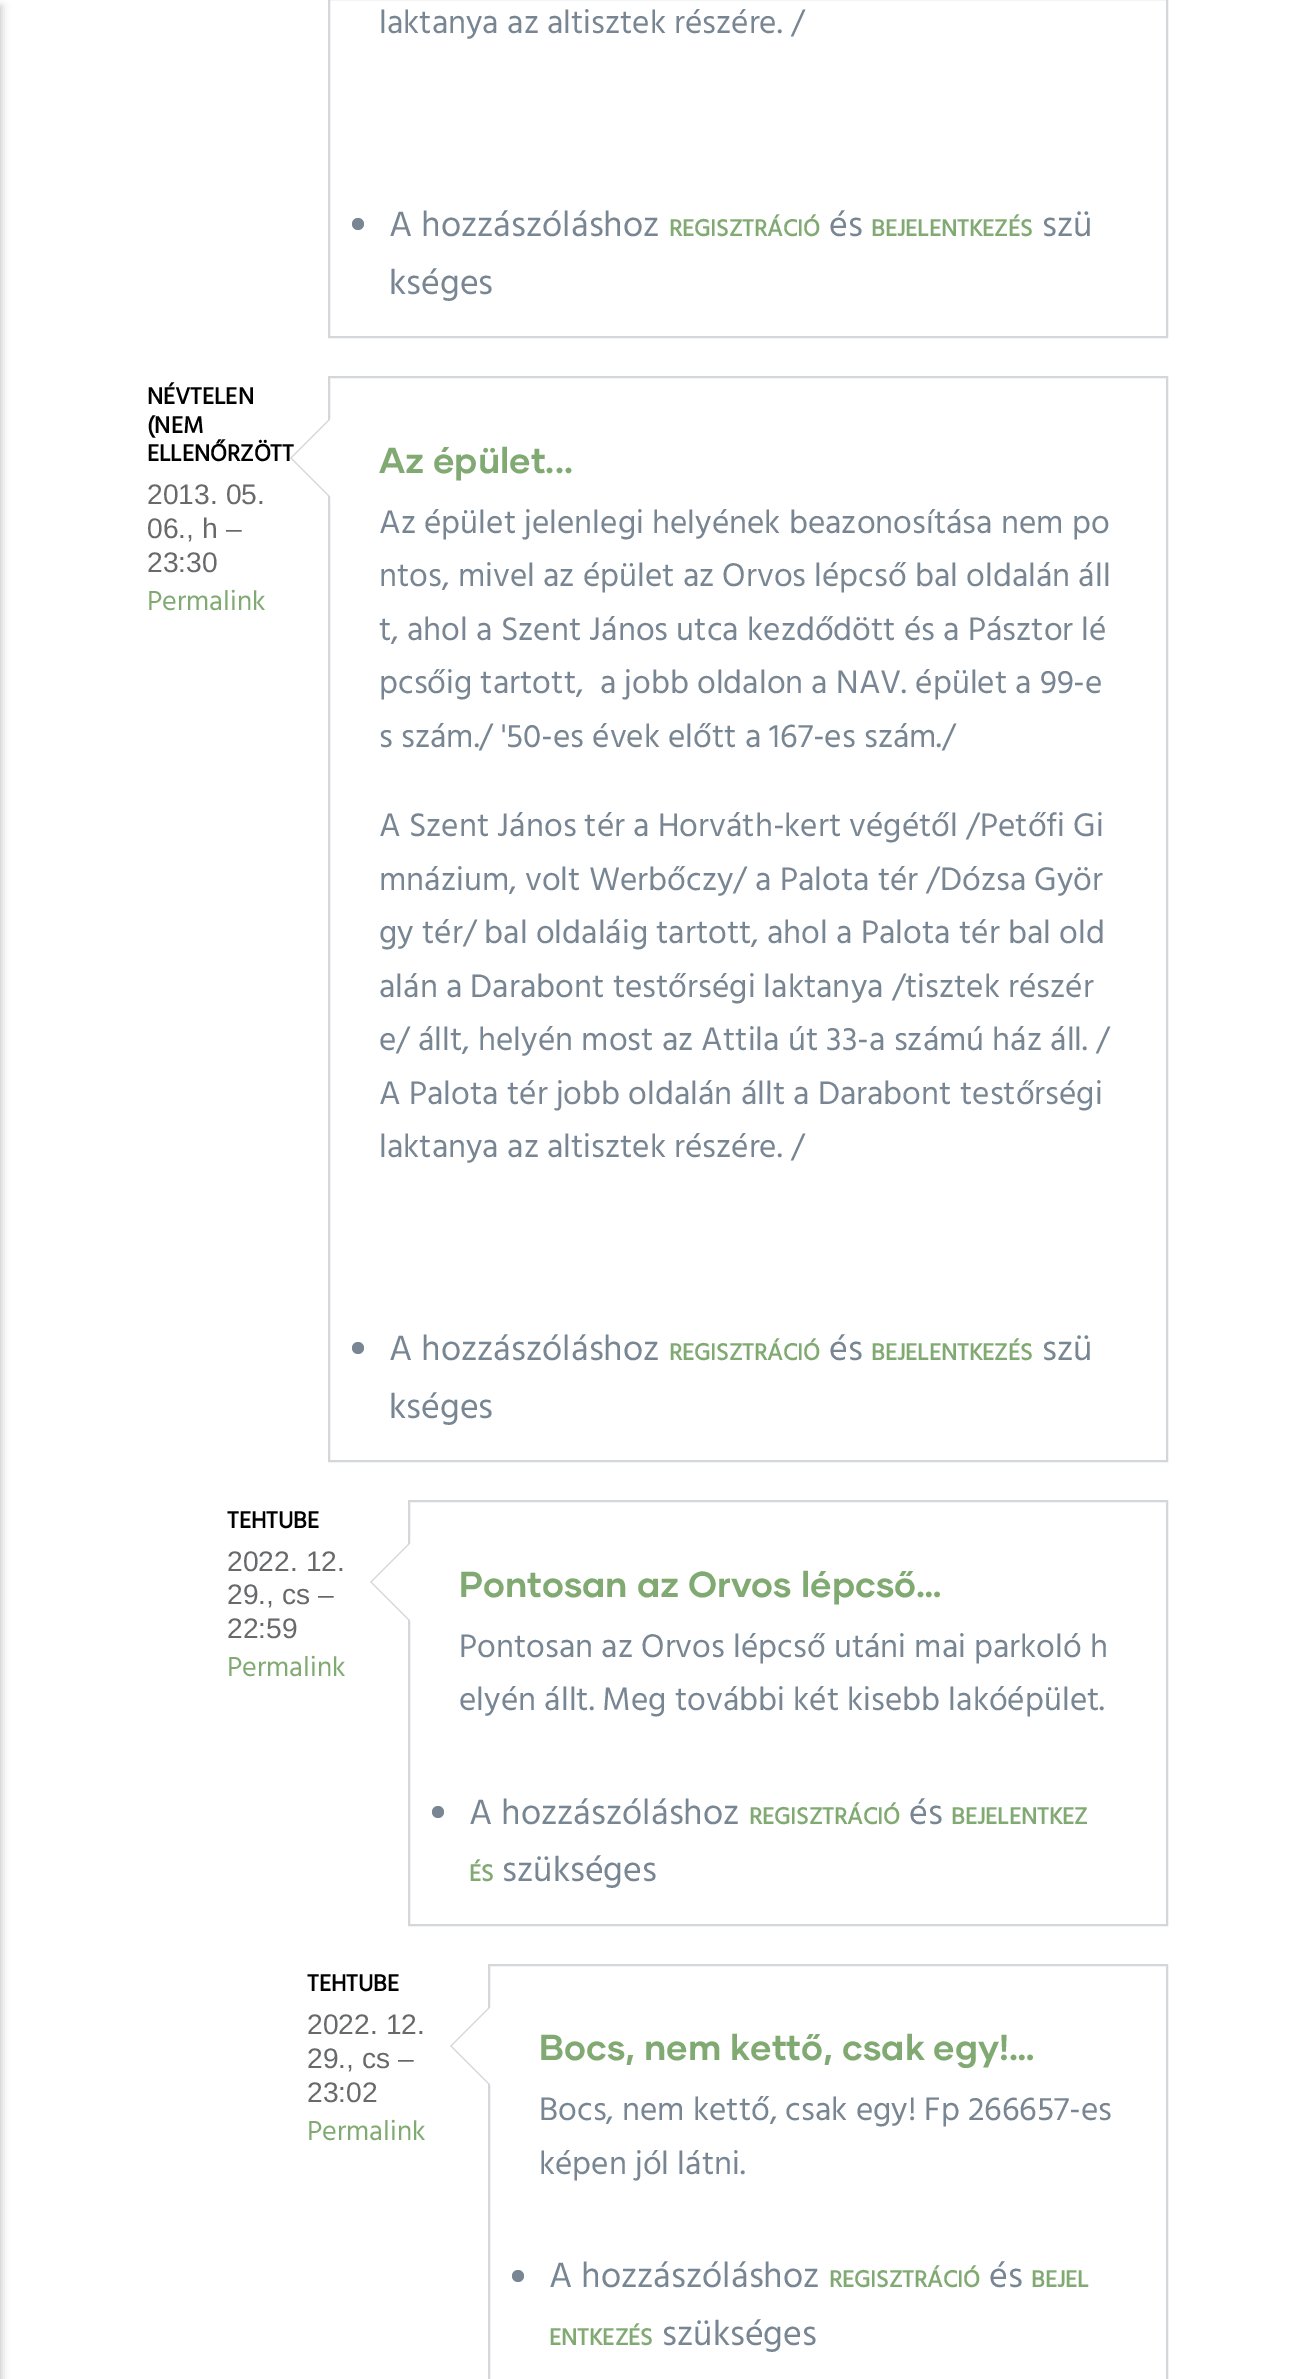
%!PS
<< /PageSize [1313 2379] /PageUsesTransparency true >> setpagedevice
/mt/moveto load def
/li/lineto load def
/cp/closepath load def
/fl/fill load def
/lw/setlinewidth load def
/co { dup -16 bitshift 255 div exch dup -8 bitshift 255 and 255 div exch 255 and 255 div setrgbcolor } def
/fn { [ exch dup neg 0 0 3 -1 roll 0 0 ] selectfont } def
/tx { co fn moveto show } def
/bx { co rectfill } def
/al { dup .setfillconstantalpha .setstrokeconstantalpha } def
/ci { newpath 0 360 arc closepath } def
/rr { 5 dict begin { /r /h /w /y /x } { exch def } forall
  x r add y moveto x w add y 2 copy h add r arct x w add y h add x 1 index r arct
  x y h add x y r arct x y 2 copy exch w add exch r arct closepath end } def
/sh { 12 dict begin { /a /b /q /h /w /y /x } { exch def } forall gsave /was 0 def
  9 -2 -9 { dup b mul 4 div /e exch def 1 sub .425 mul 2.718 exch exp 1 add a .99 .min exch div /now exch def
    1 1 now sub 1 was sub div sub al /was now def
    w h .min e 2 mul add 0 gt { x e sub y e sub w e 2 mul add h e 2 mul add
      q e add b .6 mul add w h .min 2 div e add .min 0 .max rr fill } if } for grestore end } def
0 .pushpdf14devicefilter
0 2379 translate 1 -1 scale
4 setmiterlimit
0 0 1313 2379 16#FFFFFF bx
16#000000 co
-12 6 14 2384 0 4 .2 sh
16#D3D7D9 co
2 lw
329 -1 838 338 rectstroke
16#788592 co
358 224 6 ci fl
16#D3D7D9 co
329 377 838 1084 rectstroke
16#788592 co
358 1348 6 ci fl
16#D3D7D9 co
409 1501 758 424 rectstroke
410 1542 mt 410 1622 li 370 1582 li cp fl
16#FFFFFF co
412 1542 mt 412 1622 li 372 1582 li cp fl
16#788592 co
438 1812 6 ci fl
16#D3D7D9 co
489 1965 678 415 rectstroke
490 2006 mt 490 2086 li 450 2046 li cp fl
16#FFFFFF co
492 2006 mt 492 2086 li 452 2046 li cp fl
16#788592 co
518 2276 6 ci fl
(laktanya az altisztek részére. /) 379 33 /Hind-Regular 33.4 16#788592 tx
(A hozzászóláshoz) 389 236 /Hind-Regular 36 16#788592 tx
(REGISZTRÁCIÓ) 669 236 /Hind-Bold 24 16#81AA73 tx
(és) 829 236 /Hind-Regular 36 16#788592 tx
(BEJELENTKEZÉS) 871 236 /Hind-Bold 24 16#81AA73 tx
(szü) 1042 236 /Hind-Regular 36 16#788592 tx
(kséges) 389 294 /Hind-Regular 36 16#788592 tx
(NÉVTELEN) 147 404 /Hind-Bold 24 16#000000 tx
(\(NEM) 147 433 /Hind-Bold 24 16#000000 tx
(ELLENŐRZÖTT) 147 461 /Hind-Bold 24 16#000000 tx
(2013. 05.) 147 504 /LiberationSans-Regular 28.25 16#68696B tx
(06., h –) 147 538 /LiberationSans-Regular 28.25 16#68696B tx
(23:30) 147 572 /LiberationSans-Regular 28.25 16#68696B tx
(Permalink) 147 610 /Hind-Regular 28.25 16#81AA73 tx
16#D3D7D9 co
330 418 mt 330 498 li 290 458 li cp fl
16#FFFFFF co
332 418 mt 332 498 li 292 458 li cp fl
(Az épület...) 379 473 /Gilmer-Bold 36 16#81AA73 tx
(Az épület jelenlegi helyének beazonosítása nem po) 379 533 /Hind-Regular 33.4 16#788592 tx
(ntos, mivel az épület az Orvos lépcső bal oldalán áll) 379 586 /Hind-Regular 33.4 16#788592 tx
(t, ahol a Szent János utca kezdődött és a Pásztor lé) 379 640 /Hind-Regular 33.4 16#788592 tx
(pcsőig tartott,  a jobb oldalon a NAV. épület a 99-e) 379 693 /Hind-Regular 33.4 16#788592 tx
(s szám./ '50-es évek előtt a 167-es szám./) 379 747 /Hind-Regular 33.4 16#788592 tx
(A Szent János tér a Horváth-kert végétől /Petőfi Gi) 379 836 /Hind-Regular 33.4 16#788592 tx
(mnázium, volt Werbőczy/ a Palota tér /Dózsa Györ) 379 890 /Hind-Regular 33.4 16#788592 tx
(gy tér/ bal oldaláig tartott, ahol a Palota tér bal old) 379 943 /Hind-Regular 33.4 16#788592 tx
(alán a Darabont testőrségi laktanya /tisztek részér) 379 997 /Hind-Regular 33.4 16#788592 tx
(e/ állt, helyén most az Attila út 33-a számú ház áll. /) 379 1050 /Hind-Regular 33.4 16#788592 tx
(A Palota tér jobb oldalán állt a Darabont testőrségi) 379 1104 /Hind-Regular 33.4 16#788592 tx
(laktanya az altisztek részére. /) 379 1157 /Hind-Regular 33.4 16#788592 tx
(A hozzászóláshoz) 389 1360 /Hind-Regular 36 16#788592 tx
(REGISZTRÁCIÓ) 669 1360 /Hind-Bold 24 16#81AA73 tx
(és) 829 1360 /Hind-Regular 36 16#788592 tx
(BEJELENTKEZÉS) 871 1360 /Hind-Bold 24 16#81AA73 tx
(szü) 1042 1360 /Hind-Regular 36 16#788592 tx
(kséges) 389 1418 /Hind-Regular 36 16#788592 tx
(TEHTUBE) 227 1528 /Hind-Bold 24 16#000000 tx
(2022. 12.) 227 1571 /LiberationSans-Regular 28.25 16#68696B tx
(29., cs –) 227 1604 /LiberationSans-Regular 28.25 16#68696B tx
(22:59) 227 1638 /LiberationSans-Regular 28.25 16#68696B tx
(Permalink) 227 1676 /Hind-Regular 28.25 16#81AA73 tx
(Pontosan az Orvos lépcső…) 459 1597 /Gilmer-Bold 36 16#81AA73 tx
(Pontosan az Orvos lépcső utáni mai parkoló h) 459 1657 /Hind-Regular 33.4 16#788592 tx
(elyén állt. Meg további két kisebb lakóépület.) 459 1710 /Hind-Regular 33.4 16#788592 tx
(A hozzászóláshoz) 469 1824 /Hind-Regular 36 16#788592 tx
(REGISZTRÁCIÓ) 749 1824 /Hind-Bold 24 16#81AA73 tx
(és) 909 1824 /Hind-Regular 36 16#788592 tx
(BEJELENTKEZ) 951 1824 /Hind-Bold 24 16#81AA73 tx
(ÉS) 469 1881 /Hind-Bold 24 16#81AA73 tx
(szükséges) 502 1881 /Hind-Regular 36 16#788592 tx
(TEHTUBE) 307 1991 /Hind-Bold 24 16#000000 tx
(2022. 12.) 307 2034 /LiberationSans-Regular 28.25 16#68696B tx
(29., cs –) 307 2068 /LiberationSans-Regular 28.25 16#68696B tx
(23:02) 307 2102 /LiberationSans-Regular 28.25 16#68696B tx
(Permalink) 307 2140 /Hind-Regular 28.25 16#81AA73 tx
(Bocs, nem kettő, csak egy!…) 539 2060 /Gilmer-Bold 36 16#81AA73 tx
(Bocs, nem kettő, csak egy! Fp 266657-es) 539 2120 /Hind-Regular 33.4 16#788592 tx
(képen jól látni.) 539 2174 /Hind-Regular 33.4 16#788592 tx
(A hozzászóláshoz) 549 2287 /Hind-Regular 36 16#788592 tx
(REGISZTRÁCIÓ) 829 2287 /Hind-Bold 24 16#81AA73 tx
(és) 989 2287 /Hind-Regular 36 16#788592 tx
(BEJEL) 1031 2287 /Hind-Bold 24 16#81AA73 tx
(ENTKEZÉS) 549 2345 /Hind-Bold 24 16#81AA73 tx
(szükséges) 662 2345 /Hind-Regular 36 16#788592 tx
.poppdf14devicefilter showpage
